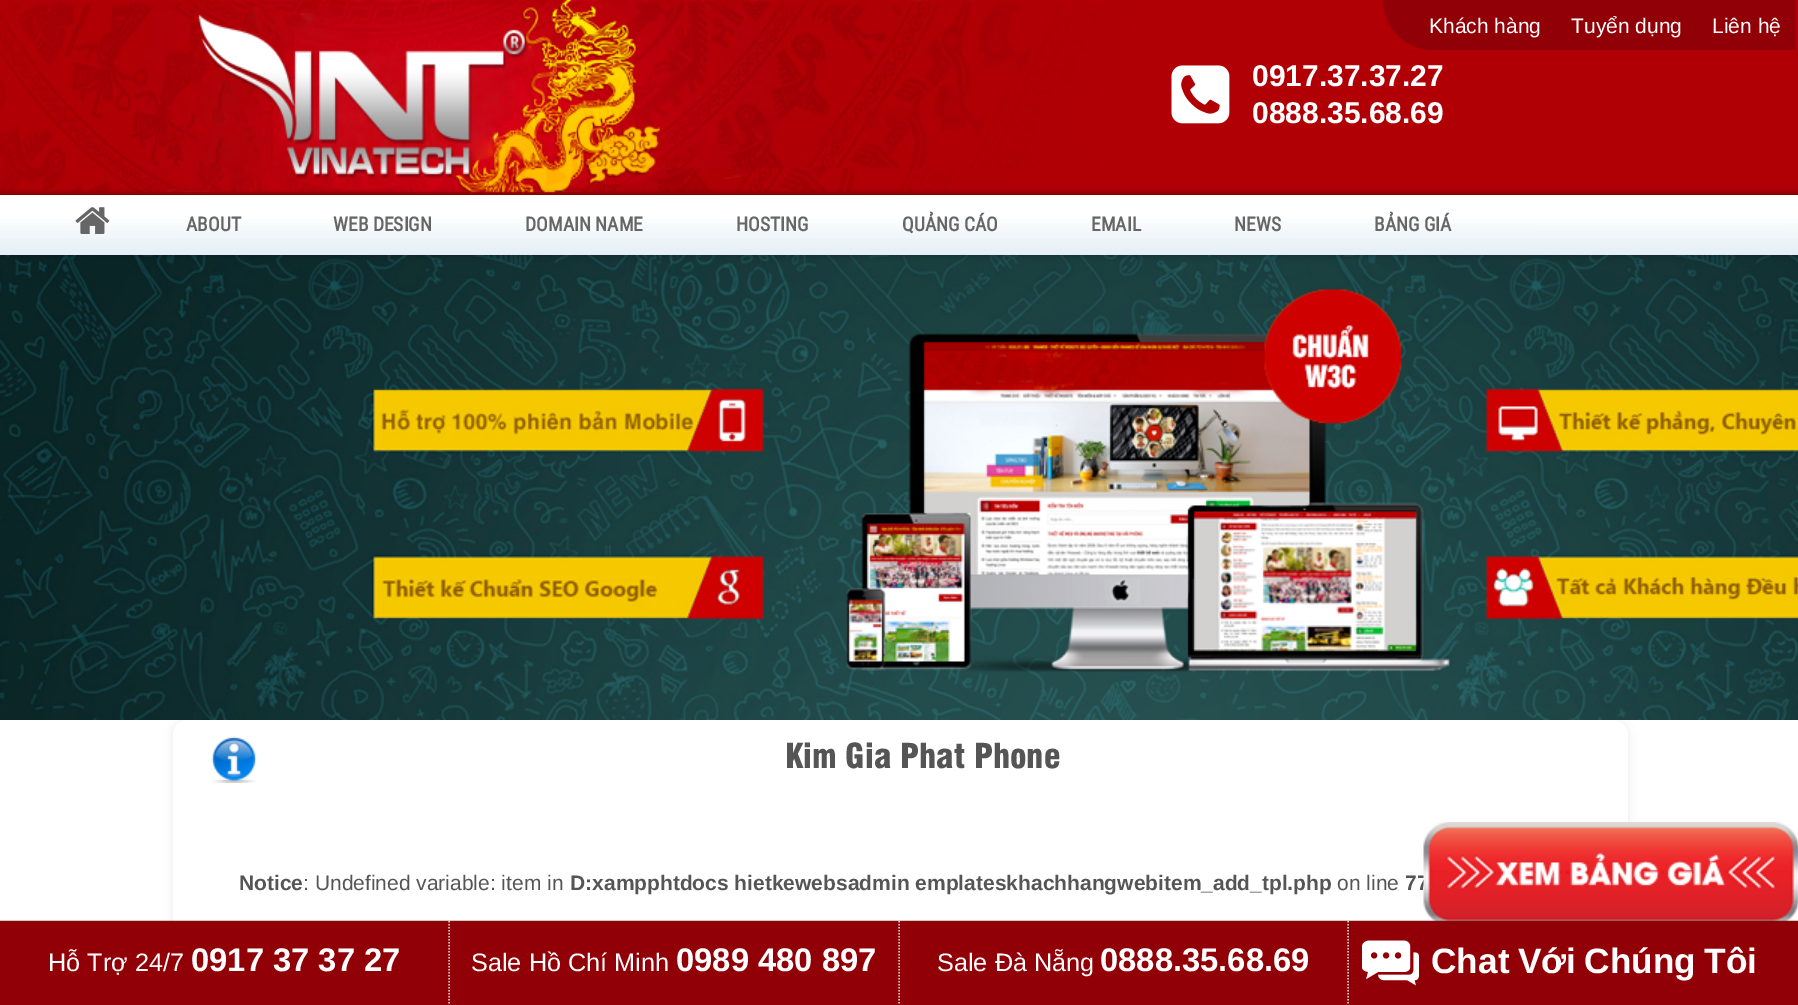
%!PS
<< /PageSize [1798 1005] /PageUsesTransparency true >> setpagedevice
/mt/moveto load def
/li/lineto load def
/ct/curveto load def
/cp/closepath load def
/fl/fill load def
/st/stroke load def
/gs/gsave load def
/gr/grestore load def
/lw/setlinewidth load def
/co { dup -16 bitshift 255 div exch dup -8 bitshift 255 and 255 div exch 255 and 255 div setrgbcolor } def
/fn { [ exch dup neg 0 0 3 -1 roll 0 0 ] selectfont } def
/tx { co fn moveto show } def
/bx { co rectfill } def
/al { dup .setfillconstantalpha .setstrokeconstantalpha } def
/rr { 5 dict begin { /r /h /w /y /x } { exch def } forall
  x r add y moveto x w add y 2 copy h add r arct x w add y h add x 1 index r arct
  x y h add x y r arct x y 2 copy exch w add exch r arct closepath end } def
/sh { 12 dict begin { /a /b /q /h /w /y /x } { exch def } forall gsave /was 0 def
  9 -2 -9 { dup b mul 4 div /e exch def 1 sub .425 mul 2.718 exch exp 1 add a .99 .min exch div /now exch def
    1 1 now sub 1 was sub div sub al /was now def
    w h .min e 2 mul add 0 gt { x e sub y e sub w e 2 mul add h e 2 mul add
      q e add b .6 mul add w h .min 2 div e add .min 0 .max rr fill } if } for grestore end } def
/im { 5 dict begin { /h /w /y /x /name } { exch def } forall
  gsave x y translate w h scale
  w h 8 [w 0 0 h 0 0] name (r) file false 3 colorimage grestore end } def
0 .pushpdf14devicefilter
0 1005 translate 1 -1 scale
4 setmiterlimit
0 0 1798 1005 16#FFFFFF bx
(media/1.raw) 0 0 1798 195 im
16#920007 co
1383 0 mt 1796 0 li 1796 50 li 1433 50 li 1405.5 50 1383 27.5 1383 0 ct cp fl
(media/2.raw) 1171 65 59 59 im
16#EBEBEB co
173 720 1455 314 15 4.5 1 sh
(media/5.raw) 0 255 1798 465 im
gs
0 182 mt 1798 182 li 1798 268 li 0 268 li cp 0 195 mt 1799 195 li 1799 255 li 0 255 li cp eoclip newpath
16#000000 co
0 195 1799 60 0 4 .3 sh
gr
(media/3.raw) 0 219 1798 36 im
(media/4.raw) 75 207 35 27 im
16#FFFFFF co
173 720 1455 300 15 rr fl
(media/6.raw) 211 736 46 47 im
0 921 1798 84 16#920007 bx
16#CCCCCC co
1.5 lw
[1.5 1.5] 0 setdash
449 921 mt 449 1005 li st
899 921 mt 899 1005 li st
1348 921 mt 1348 1005 li st
(media/7.raw) 1362 940 57 46 im
(Khách hàng) 1429 33 /LiberationSans-Regular 21 16#FFFFFF tx
(Tuyển dụng) 1571 33 /LiberationSans-Regular 21 16#FFFFFF tx
(Liên hệ) 1712 33 /LiberationSans-Regular 21 16#FFFFFF tx
(0917.37.37.27) 1252 86 /LiberationSans-Bold 30 16#FFFFFF tx
(0888.35.68.69) 1252 123 /LiberationSans-Bold 30 16#FFFFFF tx
(ABOUT) 186 231 /RobotoCondensed-Bold 19.5 16#666666 tx
(WEB DESIGN) 333 231 /RobotoCondensed-Bold 19.5 16#666666 tx
(DOMAIN NAME) 525 231 /RobotoCondensed-Bold 19.5 16#666666 tx
(HOSTING) 736 231 /RobotoCondensed-Bold 19.5 16#666666 tx
(QUẢNG CÁO) 902 231 /RobotoCondensed-Bold 19.5 16#666666 tx
(EMAIL) 1091 231 /RobotoCondensed-Bold 19.5 16#666666 tx
(NEWS) 1234 231 /RobotoCondensed-Bold 19.5 16#666666 tx
(BẢNG GIÁ) 1374 231 /RobotoCondensed-Bold 19.5 16#666666 tx
(Kim Gia Phat Phone) 785 768 /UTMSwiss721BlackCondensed-Black 33.5 16#555555 tx
(Notice) 239 890 /LiberationSans-Bold 21 16#555555 tx
(: Undefined variable: item in) 303 890 /LiberationSans-Regular 21 16#555555 tx
(D:xampphtdocs hietkewebsadmin emplateskhachhangwebitem_add_tpl.php) 570 890 /LiberationSans-Bold 21 16#555555 tx
(on line) 1337 890 /LiberationSans-Regular 21 16#555555 tx
(77) 1405 890 /LiberationSans-Bold 21 16#555555 tx
(Hỗ Trợ 24/7) 48 971 /LiberationSans-Regular 25.25 16#FFFFFF tx
(0917 37 37 27) 191 971 /LiberationSans-Bold 32.75 16#FFFFFF tx
(Sale Hồ Chí Minh) 471 971 /LiberationSans-Regular 25.25 16#FFFFFF tx
(0989 480 897) 676 971 /LiberationSans-Bold 32.75 16#FFFFFF tx
(Sale Đà Nẵng) 937 971 /LiberationSans-Regular 25.25 16#FFFFFF tx
(0888.35.68.69) 1100 971 /LiberationSans-Bold 32.75 16#FFFFFF tx
/LiberationSans-Bold 35.25 fn
1431 973 mt -1.5 0 32 (Chat Với Chúng Tôi) widthshow
(media/8.raw) 1423 822 375 99 im
0.2 al
16#000000 co
0 920 mt 0 921 li 1798 921 li 1798 1004 li 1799 1004 li 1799 920 li cp fl
.poppdf14devicefilter showpage
